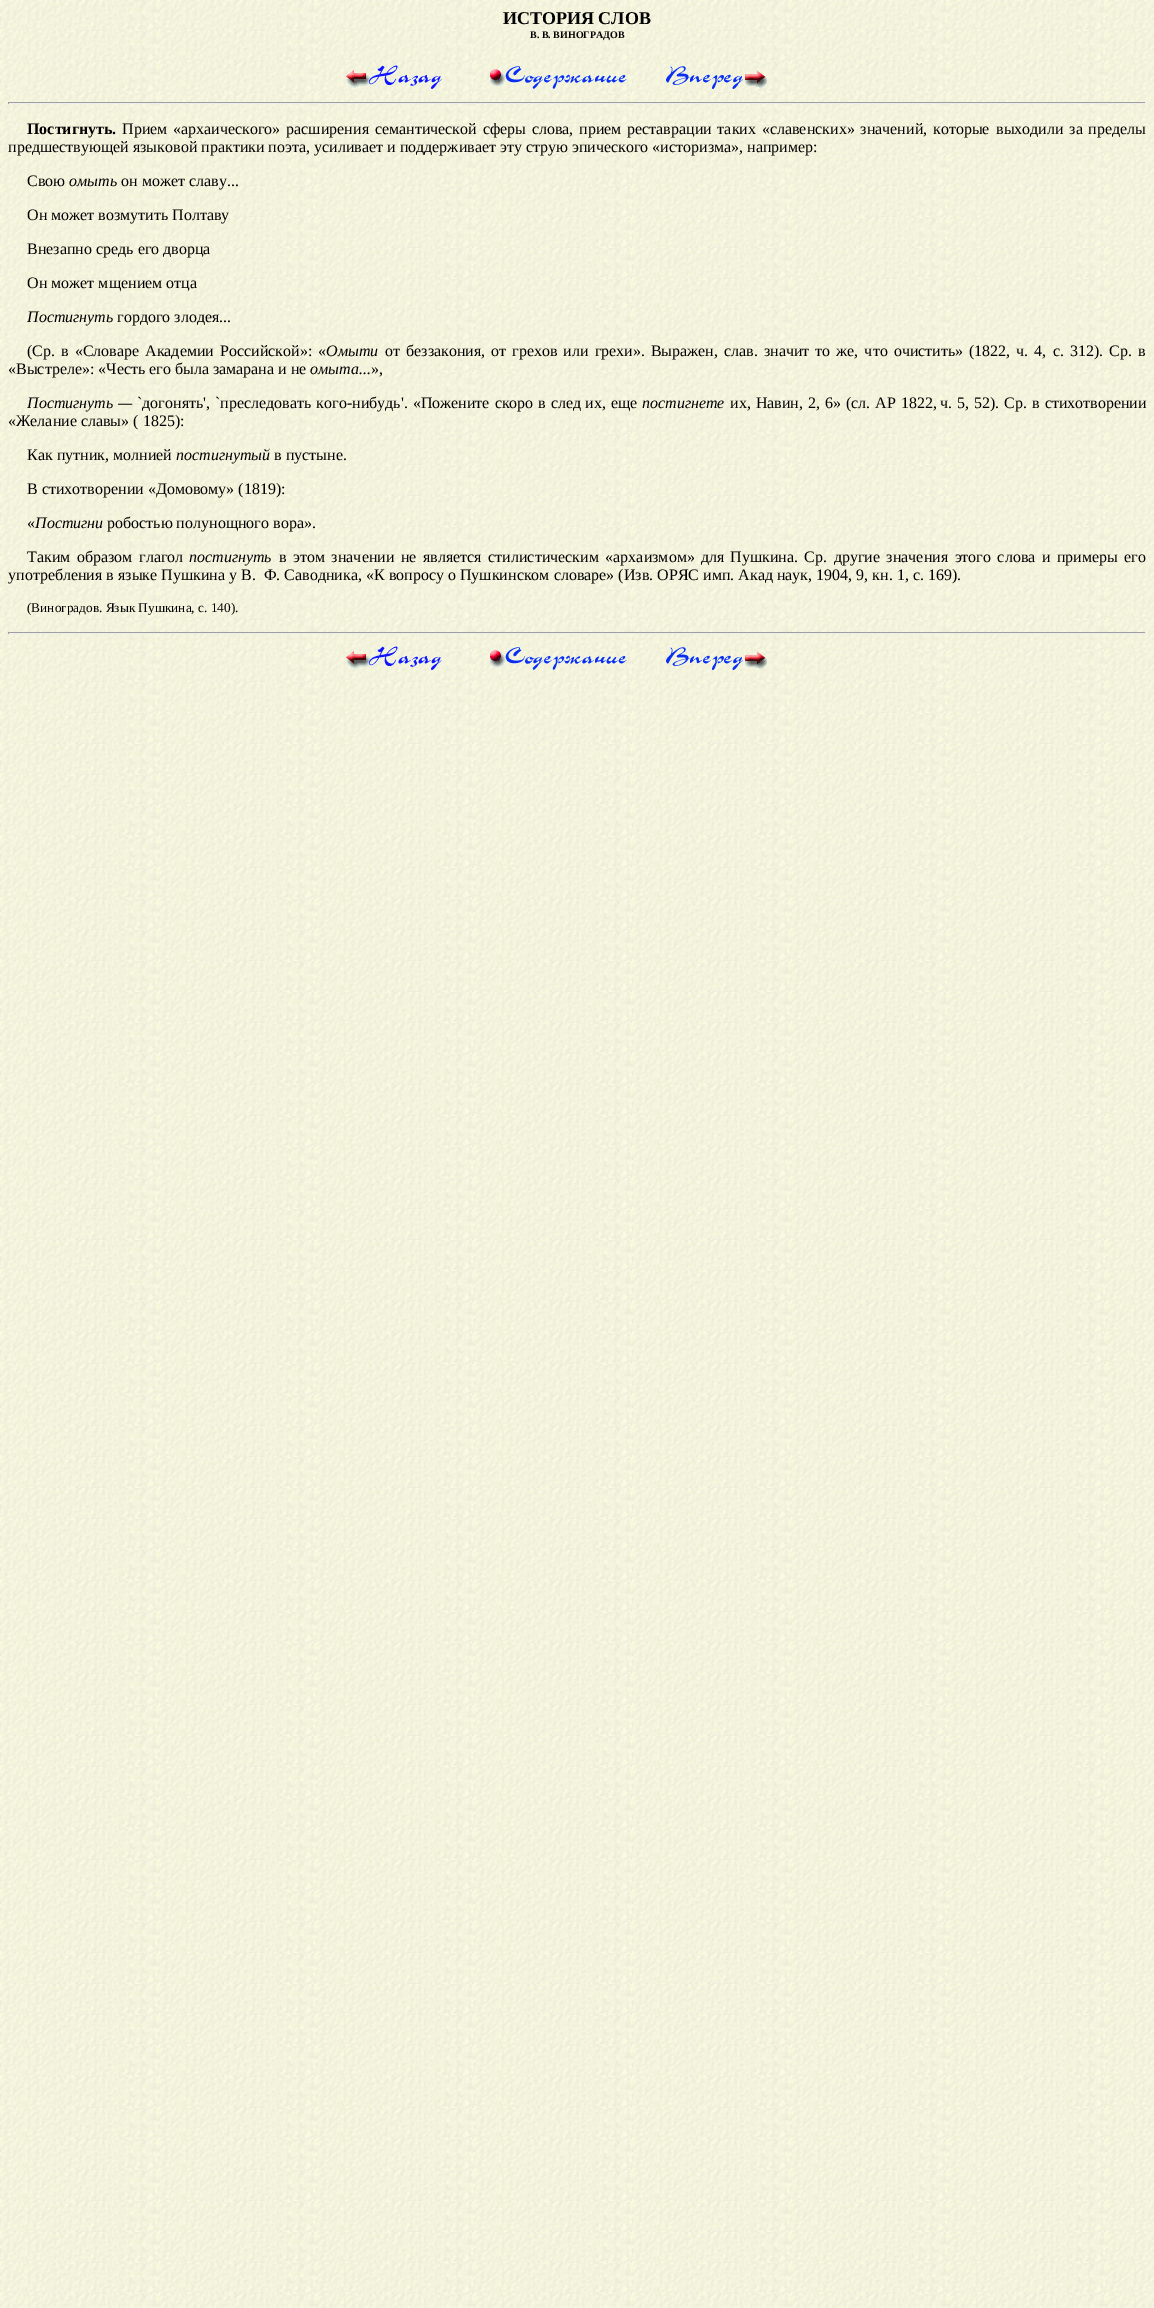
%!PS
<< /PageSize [1154 2308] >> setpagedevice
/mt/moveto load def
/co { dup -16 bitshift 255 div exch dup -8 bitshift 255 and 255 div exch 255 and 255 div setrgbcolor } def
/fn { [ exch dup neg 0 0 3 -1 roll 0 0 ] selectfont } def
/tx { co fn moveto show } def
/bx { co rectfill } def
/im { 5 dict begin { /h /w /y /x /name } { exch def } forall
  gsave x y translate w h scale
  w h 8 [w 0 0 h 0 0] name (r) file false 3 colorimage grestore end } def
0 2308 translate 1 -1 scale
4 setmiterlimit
0 0 1154 2308 16#FFFFFF bx
(media/1.raw) 0 0 1154 2308 im
(media/2.raw) 345 65 97 24 im
(media/3.raw) 490 66 137 23 im
(media/4.raw) 666 66 101 23 im
8 102 1138 1 16#9F9F9F bx
1145 102 1 2 16#EEEEEE bx
8 103 1138 1 16#EEEEEE bx
8 102 1 2 16#9F9F9F bx
8 632 1138 1 16#9F9F9F bx
1145 632 1 2 16#EEEEEE bx
8 633 1138 1 16#EEEEEE bx
8 632 1 2 16#9F9F9F bx
(media/5.raw) 345 646 97 24 im
(media/6.raw) 490 647 137 23 im
(media/7.raw) 666 647 101 23 im
(ИСТОРИЯ СЛОВ) 503 24 /LiberationSerif-Bold 18 16#000000 tx
(В. В. ВИНОГРАДОВ) 530 38 /LiberationSerif-Bold 10 16#000000 tx
(Постигнуть.) 27 134 /LiberationSerif-Bold 16 16#000000 tx
/LiberationSerif-Regular 16 fn
122 134 mt 1.75 0 32 (Прием «архаического» расширения семантической сферы слова,) widthshow
579 134 mt 1.75 0 32 (прием реставрации таких «славенских» значений, которые) widthshow
996 134 mt 1.75 0 32 (выходили за пределы) widthshow
(предшествующей языковой практики поэта, усиливает и поддерживает эту струю эпического «историзма», например:) 8 152 /LiberationSerif-Regular 16 16#000000 tx
(Свою) 27 186 /LiberationSerif-Regular 16 16#000000 tx
(омыть) 69 186 /LiberationSerif-Italic 16 16#000000 tx
(он может славу...) 121 186 /LiberationSerif-Regular 16 16#000000 tx
(Он может возмутить Полтаву) 27 220 /LiberationSerif-Regular 16 16#000000 tx
(Внезапно средь его дворца) 27 254 /LiberationSerif-Regular 16 16#000000 tx
(Он может мщением отца) 27 288 /LiberationSerif-Regular 16 16#000000 tx
(Постигнуть) 27 322 /LiberationSerif-Italic 16 16#000000 tx
(гордого злодея...) 117 322 /LiberationSerif-Regular 16 16#000000 tx
27 356 mt 2 0 32 (\(Ср. в «Словаре Академии) widthshow
(Российской»:) 220 356 /LiberationSerif-Regular 16 16#000000 tx
(«) 318 356 /LiberationSerif-Regular 16 16#000000 tx
(Омыти) 326 356 /LiberationSerif-Italic 16 16#000000 tx
/LiberationSerif-Regular 16 fn
385 356 mt 2 0 32 (от беззакония, от грехов или грехи». Выражен,) widthshow
724 356 mt 2 0 32 (слав. значит то же, что очистить» \(1822, ч. 4,) widthshow
1053 356 mt 2 0 32 (с. 312\). Ср. в) widthshow
(«Выстреле»: «Честь его была замарана и не) 8 374 /LiberationSerif-Regular 16 16#000000 tx
(омыта...) 310 374 /LiberationSerif-Italic 16 16#000000 tx
(»,) 371 374 /LiberationSerif-Regular 16 16#000000 tx
/LiberationSerif-Italic 16 fn
27 408 mt 1 0 32 (Постигнуть —) widthshow
/LiberationSerif-Regular 16 fn
137 408 mt 1 0 32 (`догонять', `преследовать кого-нибудь'. «Пожените скоро в след) widthshow
585 408 mt 1 0 32 (их, еще) widthshow
(постигнете) 642 408 /LiberationSerif-Italic 16 16#000000 tx
/LiberationSerif-Regular 16 fn
730 408 mt 1 0 32 (их, Навин, 2, 6» \(сл. АР 1822,) widthshow
940 408 mt 1 0 32 (ч. 5, 52\). Ср. в стихотворении) widthshow
(«Желание славы» \( 1825\):) 8 426 /LiberationSerif-Regular 16 16#000000 tx
(Как путник, молнией) 27 460 /LiberationSerif-Regular 16 16#000000 tx
(постигнутый) 176 460 /LiberationSerif-Italic 16 16#000000 tx
(в пустыне.) 274 460 /LiberationSerif-Regular 16 16#000000 tx
(В стихотворении «Домовому» \(1819\):) 27 494 /LiberationSerif-Regular 16 16#000000 tx
(«) 27 528 /LiberationSerif-Regular 16 16#000000 tx
(Постигни) 35 528 /LiberationSerif-Italic 16 16#000000 tx
(робостью полунощного вора».) 107 528 /LiberationSerif-Regular 16 16#000000 tx
27 562 mt 2.5 0 32 (Таким образом глагол) widthshow
(постигнуть) 189 562 /LiberationSerif-Italic 16 16#000000 tx
(в) 279 562 /LiberationSerif-Regular 16 16#000000 tx
293 562 mt 2.5 0 32 (этом значении не является стилистическим «архаизмом» для) widthshow
730 562 mt 2.5 0 32 (Пушкина. Ср. другие значения этого слова и примеры его) widthshow
(употребления в языке Пушкина у В.  Ф. Саводника, «К вопросу о Пушкинском словаре» \(Изв. ОРЯС имп. Акад наук, 1904, 9, кн. 1, с. 169\).) 8 580 /LiberationSerif-Regular 16 16#000000 tx
(\(Виноградов. Язык Пушкина, с. 140\).) 27 612 /LiberationSerif-Regular 13.3 16#000000 tx
showpage
